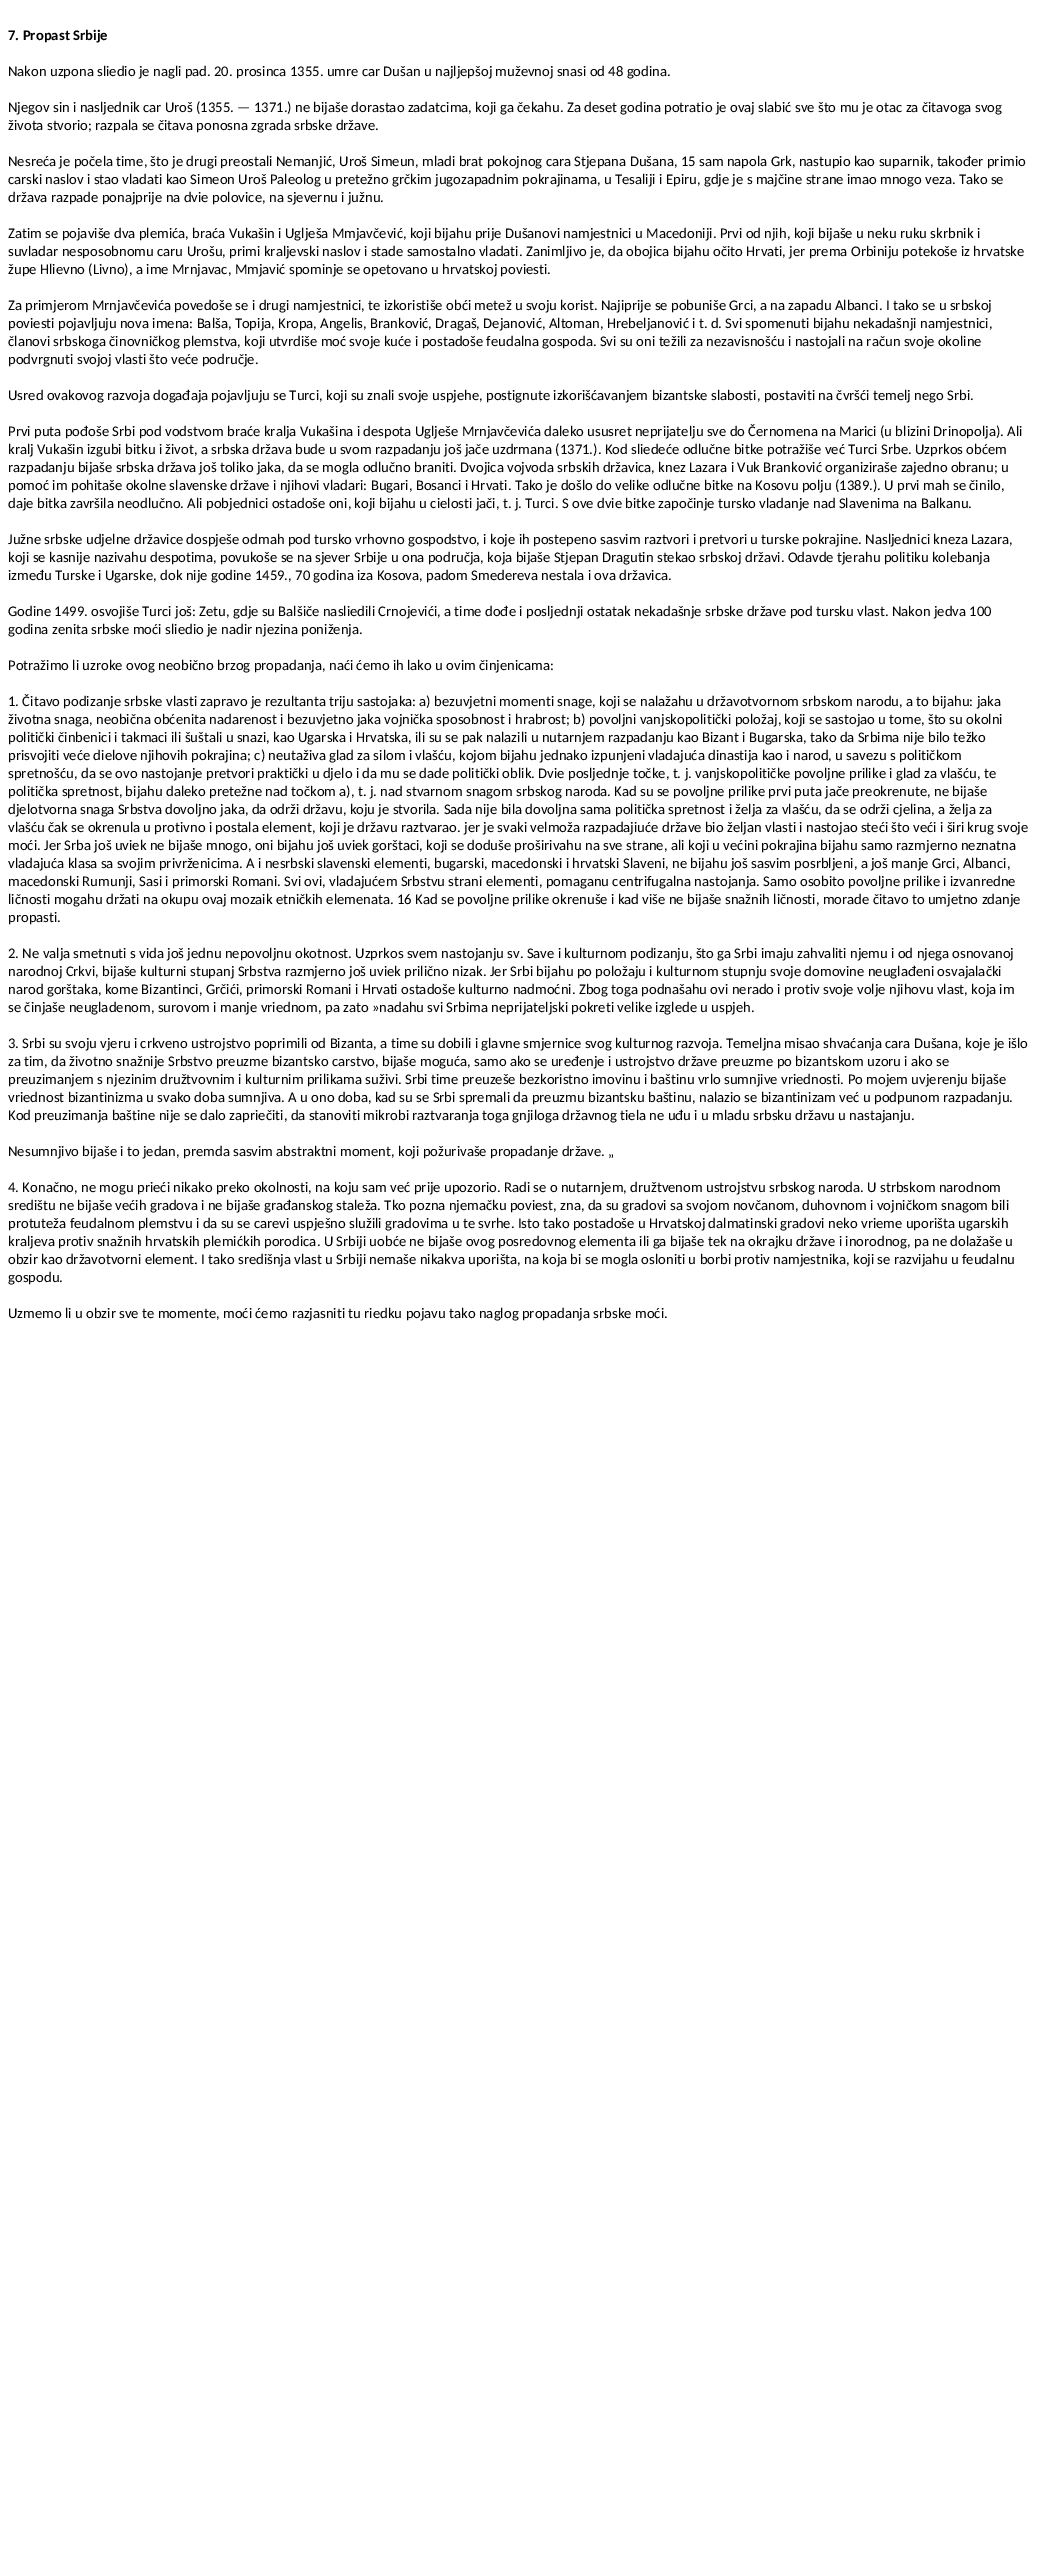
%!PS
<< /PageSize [1037 2568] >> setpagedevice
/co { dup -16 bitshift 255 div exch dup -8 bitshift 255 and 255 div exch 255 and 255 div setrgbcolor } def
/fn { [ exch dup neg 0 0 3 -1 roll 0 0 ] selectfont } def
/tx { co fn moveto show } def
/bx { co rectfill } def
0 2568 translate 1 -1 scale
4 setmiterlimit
0 0 1037 2568 16#FFFFFF bx
(7. Propast Srbije) 8 40 /Carlito-Bold 14.67 16#000000 tx
(Nakon uzpona sliedio je nagli pad. 20. prosinca 1355. umre car Dušan u najljepšoj muževnoj snasi od 48 godina.) 8 76 /Carlito-Regular 14.67 16#000000 tx
(Njegov sin i nasljednik car Uroš \(1355. — 1371.\) ne bijaše dorastao zadatcima, koji ga čekahu. Za deset godina potratio je ovaj slabić sve što mu je otac za čitavoga svog) 8 112 /Carlito-Regular 14.67 16#000000 tx
(života stvorio; razpala se čitava ponosna zgrada srbske države.) 8 130 /Carlito-Regular 14.67 16#000000 tx
(Nesreća je počela time, što je drugi preostali Nemanjić, Uroš Simeun, mladi brat pokojnog cara Stjepana Dušana, 15 sam napola Grk, nastupio kao suparnik, također primio) 8 166 /Carlito-Regular 14.67 16#000000 tx
(carski naslov i stao vladati kao Simeon Uroš Paleolog u pretežno grčkim jugozapadnim pokrajinama, u Tesaliji i Epiru, gdje je s majčine strane imao mnogo veza. Tako se) 8 184 /Carlito-Regular 14.67 16#000000 tx
(država razpade ponajprije na dvie polovice, na sjevernu i južnu.) 8 202 /Carlito-Regular 14.67 16#000000 tx
(Zatim se pojaviše dva plemića, braća Vukašin i Uglješa Mmjavčević, koji bijahu prije Dušanovi namjestnici u Macedoniji. Prvi od njih, koji bijaše u neku ruku skrbnik i) 8 238 /Carlito-Regular 14.67 16#000000 tx
(suvladar nesposobnomu caru Urošu, primi kraljevski naslov i stade samostalno vladati. Zanimljivo je, da obojica bijahu očito Hrvati, jer prema Orbiniju potekoše iz hrvatske) 8 256 /Carlito-Regular 14.67 16#000000 tx
(župe Hlievno \(Livno\), a ime Mrnjavac, Mmjavić spominje se opetovano u hrvatskoj poviesti.) 8 274 /Carlito-Regular 14.67 16#000000 tx
(Za primjerom Mrnjavčevića povedoše se i drugi namjestnici, te izkoristiše obći metež u svoju korist. Najiprije se pobuniše Grci, a na zapadu Albanci. I tako se u srbskoj) 8 310 /Carlito-Regular 14.67 16#000000 tx
(poviesti pojavljuju nova imena: Balša, Topija, Kropa, Angelis, Branković, Dragaš, Dejanović, Altoman, Hrebeljanović i t. d. Svi spomenuti bijahu nekadašnji namjestnici,) 8 328 /Carlito-Regular 14.67 16#000000 tx
(članovi srbskoga činovničkog plemstva, koji utvrdiše moć svoje kuće i postadoše feudalna gospoda. Svi su oni težili za nezavisnošću i nastojali na račun svoje okoline) 8 346 /Carlito-Regular 14.67 16#000000 tx
(podvrgnuti svojoj vlasti što veće područje.) 8 364 /Carlito-Regular 14.67 16#000000 tx
(Usred ovakovog razvoja događaja pojavljuju se Turci, koji su znali svoje uspjehe, postignute izkorišćavanjem bizantske slabosti, postaviti na čvršći temelj nego Srbi.) 8 400 /Carlito-Regular 14.67 16#000000 tx
(Prvi puta pođoše Srbi pod vodstvom braće kralja Vukašina i despota Uglješe Mrnjavčevića daleko ususret neprijatelju sve do Černomena na Marici \(u blizini Drinopolja\). Ali) 8 436 /Carlito-Regular 14.67 16#000000 tx
(kralj Vukašin izgubi bitku i život, a srbska država bude u svom razpadanju još jače uzdrmana \(1371.\). Kod sliedeće odlučne bitke potražiše već Turci Srbe. Uzprkos obćem) 8 454 /Carlito-Regular 14.67 16#000000 tx
(razpadanju bijaše srbska država još toliko jaka, da se mogla odlučno braniti. Dvojica vojvoda srbskih državica, knez Lazara i Vuk Branković organiziraše zajedno obranu; u) 8 472 /Carlito-Regular 14.67 16#000000 tx
(pomoć im pohitaše okolne slavenske države i njihovi vladari: Bugari, Bosanci i Hrvati. Tako je došlo do velike odlučne bitke na Kosovu polju \(1389.\). U prvi mah se činilo,) 8 490 /Carlito-Regular 14.67 16#000000 tx
(daje bitka završila neodlučno. Ali pobjednici ostadoše oni, koji bijahu u cielosti jači, t. j. Turci. S ove dvie bitke započinje tursko vladanje nad Slavenima na Balkanu.) 8 508 /Carlito-Regular 14.67 16#000000 tx
(Južne srbske udjelne državice dospješe odmah pod tursko vrhovno gospodstvo, i koje ih postepeno sasvim raztvori i pretvori u turske pokrajine. Nasljednici kneza Lazara,) 8 544 /Carlito-Regular 14.67 16#000000 tx
(koji se kasnije nazivahu despotima, povukoše se na sjever Srbije u ona područja, koja bijaše Stjepan Dragutin stekao srbskoj državi. Odavde tjerahu politiku kolebanja) 8 562 /Carlito-Regular 14.67 16#000000 tx
(između Turske i Ugarske, dok nije godine 1459., 70 godina iza Kosova, padom Smedereva nestala i ova državica.) 8 580 /Carlito-Regular 14.67 16#000000 tx
(Godine 1499. osvojiše Turci još: Zetu, gdje su Balšiče nasliedili Crnojevići, a time dođe i posljednji ostatak nekadašnje srbske države pod tursku vlast. Nakon jedva 100) 8 616 /Carlito-Regular 14.67 16#000000 tx
(godina zenita srbske moći sliedio je nadir njezina poniženja.) 8 634 /Carlito-Regular 14.67 16#000000 tx
(Potražimo li uzroke ovog neobično brzog propadanja, naći ćemo ih lako u ovim činjenicama:) 8 670 /Carlito-Regular 14.67 16#000000 tx
(1. Čitavo podizanje srbske vlasti zapravo je rezultanta triju sastojaka: a\) bezuvjetni momenti snage, koji se nalažahu u državotvornom srbskom narodu, a to bijahu: jaka) 8 706 /Carlito-Regular 14.67 16#000000 tx
(životna snaga, neobična obćenita nadarenost i bezuvjetno jaka vojnička sposobnost i hrabrost; b\) povoljni vanjskopolitički položaj, koji se sastojao u tome, što su okolni) 8 724 /Carlito-Regular 14.67 16#000000 tx
(politički činbenici i takmaci ili šuštali u snazi, kao Ugarska i Hrvatska, ili su se pak nalazili u nutarnjem razpadanju kao Bizant i Bugarska, tako da Srbima nije bilo težko) 8 742 /Carlito-Regular 14.67 16#000000 tx
(prisvojiti veće dielove njihovih pokrajina; c\) neutaživa glad za silom i vlašću, kojom bijahu jednako izpunjeni vladajuća dinastija kao i narod, u savezu s političkom) 8 760 /Carlito-Regular 14.67 16#000000 tx
(spretnošću, da se ovo nastojanje pretvori praktički u djelo i da mu se dade politički oblik. Dvie posljednje točke, t. j. vanjskopolitičke povoljne prilike i glad za vlašću, te) 8 778 /Carlito-Regular 14.67 16#000000 tx
(politička spretnost, bijahu daleko pretežne nad točkom a\), t. j. nad stvarnom snagom srbskog naroda. Kad su se povoljne prilike prvi puta jače preokrenute, ne bijaše) 8 796 /Carlito-Regular 14.67 16#000000 tx
(djelotvorna snaga Srbstva dovoljno jaka, da održi državu, koju je stvorila. Sada nije bila dovoljna sama politička spretnost i želja za vlašću, da se održi cjelina, a želja za) 8 814 /Carlito-Regular 14.67 16#000000 tx
(vlašću čak se okrenula u protivno i postala element, koji je državu raztvarao. jer je svaki velmoža razpadajiuće države bio željan vlasti i nastojao steći što veći i širi krug svoje) 8 832 /Carlito-Regular 14.67 16#000000 tx
(moći. Jer Srba još uviek ne bijaše mnogo, oni bijahu još uviek gorštaci, koji se doduše proširivahu na sve strane, ali koji u većini pokrajina bijahu samo razmjerno neznatna) 8 850 /Carlito-Regular 14.67 16#000000 tx
(vladajuća klasa sa svojim privrženicima. A i nesrbski slavenski elementi, bugarski, macedonski i hrvatski Slaveni, ne bijahu još sasvim posrbljeni, a još manje Grci, Albanci,) 8 868 /Carlito-Regular 14.67 16#000000 tx
(macedonski Rumunji, Sasi i primorski Romani. Svi ovi, vladajućem Srbstvu strani elementi, pomaganu centrifugalna nastojanja. Samo osobito povoljne prilike i izvanredne) 8 886 /Carlito-Regular 14.67 16#000000 tx
(ličnosti mogahu držati na okupu ovaj mozaik etničkih elemenata. 16 Kad se povoljne prilike okrenuše i kad više ne bijaše snažnih ličnosti, morade čitavo to umjetno zdanje) 8 904 /Carlito-Regular 14.67 16#000000 tx
(propasti.) 8 922 /Carlito-Regular 14.67 16#000000 tx
(2. Ne valja smetnuti s vida još jednu nepovoljnu okotnost. Uzprkos svem nastojanju sv. Save i kulturnom podizanju, što ga Srbi imaju zahvaliti njemu i od njega osnovanoj) 8 958 /Carlito-Regular 14.67 16#000000 tx
(narodnoj Crkvi, bijaše kulturni stupanj Srbstva razmjerno još uviek prilično nizak. Jer Srbi bijahu po položaju i kulturnom stupnju svoje domovine neuglađeni osvajalački) 8 976 /Carlito-Regular 14.67 16#000000 tx
(narod gorštaka, kome Bizantinci, Grčići, primorski Romani i Hrvati ostadoše kulturno nadmoćni. Zbog toga podnašahu ovi nerado i protiv svoje volje njihovu vlast, koja im) 8 994 /Carlito-Regular 14.67 16#000000 tx
(se činjaše neugladenom, surovom i manje vriednom, pa zato »nadahu svi Srbima neprijateljski pokreti velike izglede u uspjeh.) 8 1012 /Carlito-Regular 14.67 16#000000 tx
(3. Srbi su svoju vjeru i crkveno ustrojstvo poprimili od Bizanta, a time su dobili i glavne smjernice svog kulturnog razvoja. Temeljna misao shvaćanja cara Dušana, koje je išlo) 8 1048 /Carlito-Regular 14.67 16#000000 tx
(za tim, da životno snažnije Srbstvo preuzme bizantsko carstvo, bijaše moguća, samo ako se uređenje i ustrojstvo države preuzme po bizantskom uzoru i ako se) 8 1066 /Carlito-Regular 14.67 16#000000 tx
(preuzimanjem s njezinim družtvovnim i kulturnim prilikama suživi. Srbi time preuzeše bezkoristno imovinu i baštinu vrlo sumnjive vriednosti. Po mojem uvjerenju bijaše) 8 1084 /Carlito-Regular 14.67 16#000000 tx
(vriednost bizantinizma u svako doba sumnjiva. A u ono doba, kad su se Srbi spremali da preuzmu bizantsku baštinu, nalazio se bizantinizam već u podpunom razpadanju.) 8 1102 /Carlito-Regular 14.67 16#000000 tx
(Kod preuzimanja baštine nije se dalo zapriečiti, da stanoviti mikrobi raztvaranja toga gnjiloga državnog tiela ne uđu i u mladu srbsku državu u nastajanju.) 8 1120 /Carlito-Regular 14.67 16#000000 tx
(Nesumnjivo bijaše i to jedan, premda sasvim abstraktni moment, koji požurivaše propadanje države. „) 8 1156 /Carlito-Regular 14.67 16#000000 tx
(4. Konačno, ne mogu prieći nikako preko okolnosti, na koju sam već prije upozorio. Radi se o nutarnjem, družtvenom ustrojstvu srbskog naroda. U strbskom narodnom) 8 1192 /Carlito-Regular 14.67 16#000000 tx
(središtu ne bijaše većih gradova i ne bijaše građanskog staleža. Tko pozna njemačku poviest, zna, da su gradovi sa svojom novčanom, duhovnom i vojničkom snagom bili) 8 1210 /Carlito-Regular 14.67 16#000000 tx
(protuteža feudalnom plemstvu i da su se carevi uspješno služili gradovima u te svrhe. Isto tako postadoše u Hrvatskoj dalmatinski gradovi neko vrieme uporišta ugarskih) 8 1228 /Carlito-Regular 14.67 16#000000 tx
(kraljeva protiv snažnih hrvatskih plemićkih porodica. U Srbiji uobće ne bijaše ovog posredovnog elementa ili ga bijaše tek na okrajku države i inorodnog, pa ne dolažaše u) 8 1246 /Carlito-Regular 14.67 16#000000 tx
(obzir kao državotvorni element. I tako središnja vlast u Srbiji nemaše nikakva uporišta, na koja bi se mogla osloniti u borbi protiv namjestnika, koji se razvijahu u feudalnu) 8 1264 /Carlito-Regular 14.67 16#000000 tx
(gospodu.) 8 1282 /Carlito-Regular 14.67 16#000000 tx
(Uzmemo li u obzir sve te momente, moći ćemo razjasniti tu riedku pojavu tako naglog propadanja srbske moći.) 8 1318 /Carlito-Regular 14.67 16#000000 tx
showpage
